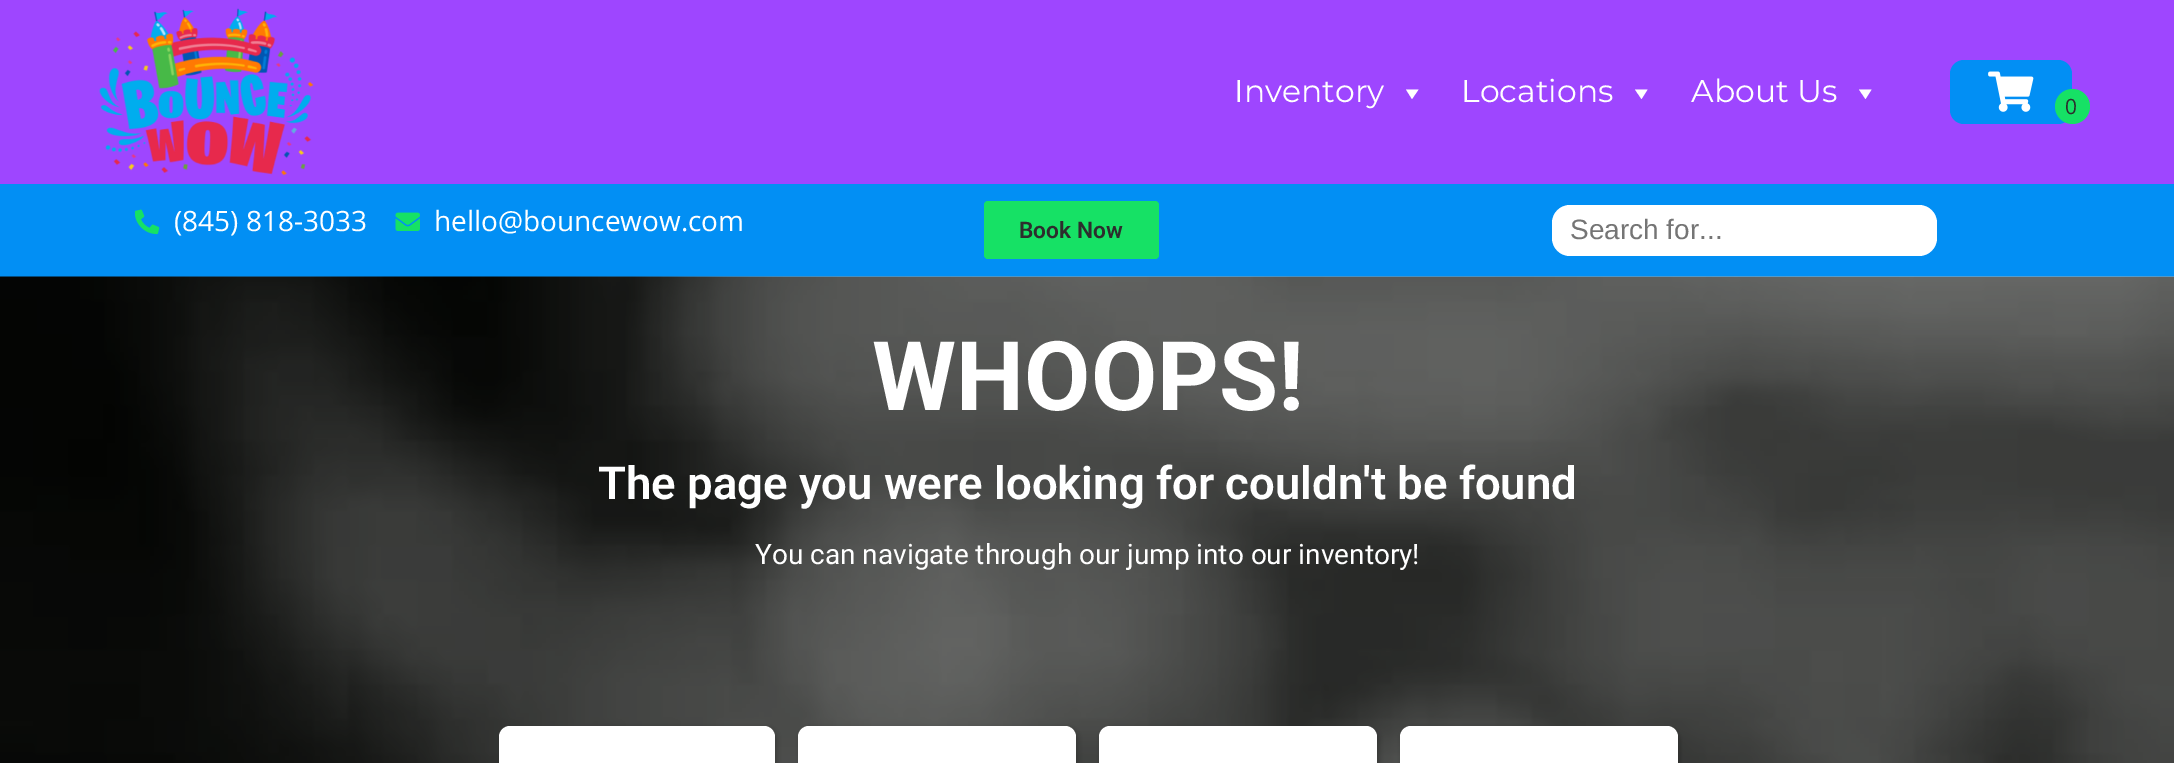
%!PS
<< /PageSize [2174 763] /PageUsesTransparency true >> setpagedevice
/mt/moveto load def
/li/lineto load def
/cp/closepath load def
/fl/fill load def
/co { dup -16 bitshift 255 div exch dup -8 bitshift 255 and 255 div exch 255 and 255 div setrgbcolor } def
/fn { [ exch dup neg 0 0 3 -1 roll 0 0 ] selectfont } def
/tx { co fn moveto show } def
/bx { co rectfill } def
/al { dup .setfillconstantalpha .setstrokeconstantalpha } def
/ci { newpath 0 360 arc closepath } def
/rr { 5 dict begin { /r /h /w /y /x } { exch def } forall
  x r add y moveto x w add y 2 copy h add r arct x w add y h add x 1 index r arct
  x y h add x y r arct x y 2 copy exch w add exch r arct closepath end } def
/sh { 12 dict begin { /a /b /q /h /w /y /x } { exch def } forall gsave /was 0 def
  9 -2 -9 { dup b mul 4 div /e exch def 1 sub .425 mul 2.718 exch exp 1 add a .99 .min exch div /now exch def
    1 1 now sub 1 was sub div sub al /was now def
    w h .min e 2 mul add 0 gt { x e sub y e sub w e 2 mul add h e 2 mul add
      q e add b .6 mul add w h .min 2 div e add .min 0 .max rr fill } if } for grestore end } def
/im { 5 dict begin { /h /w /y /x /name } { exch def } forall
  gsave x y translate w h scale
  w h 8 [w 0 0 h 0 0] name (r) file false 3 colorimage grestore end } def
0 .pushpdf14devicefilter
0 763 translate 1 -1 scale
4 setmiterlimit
0 0 2174 763 16#9E46FF bx
(media/1.raw) 99 8 215 168 im
16#FFFFFF co
1418.5 89.5 mt 1412 99 li 1406 89.5 li cp fl
1647.5 89.5 mt 1641.5 99 li 1635 89.5 li cp fl
1871.5 89.5 mt 1865.5 99 li 1859 89.5 li cp fl
16#028FF4 co
1950 60 122 64 14 rr fl
(media/2.raw) 1988 71 46 41 im
16#16E165 co
2072.5 106.5 17.5 ci fl
0 184 2174 93 16#028FF4 bx
(media/3.raw) 135 209 25 26 im
(media/4.raw) 395 212 25 19 im
16#16E165 co
984 201 175 58 4 rr fl
16#FFFFFF co
1552 205 385 51 18 rr fl
(media/5.raw) 0 276 2174 487 im
16#000000 co
501 728 276 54 11 2.5 .2 sh
16#FFFFFF co
499 726 276 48 11 rr fl
16#000000 co
800 728 278 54 11 2.5 .2 sh
16#FFFFFF co
798 726 278 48 11 rr fl
16#000000 co
1101 728 278 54 11 2.5 .2 sh
16#FFFFFF co
1099 726 278 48 11 rr fl
16#000000 co
1402 728 278 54 11 2.5 .2 sh
16#FFFFFF co
1400 726 278 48 11 rr fl
(Inventory) 1234 102 /Montserrat-Regular 31.5 16#FFFFFF tx
(Locations) 1461 102 /Montserrat-Regular 31.5 16#FFFFFF tx
(About Us) 1691 102 /Montserrat-Regular 31.5 16#FFFFFF tx
(0) 2065 114 /OpenSans-Regular 21 16#2D2D2D tx
(\(845\) 818-3033) 174 231 /OpenSans-Regular 28 16#FFFFFF tx
(hello@bouncewow.com) 434 231 /OpenSans-Regular 28 16#FFFFFF tx
(Book Now) 1019 238 /Roboto-SemiBold 22.75 16#2D2D2D tx
(Search for...) 1570 239 /LiberationSans-Regular 28 16#757575 tx
(WHOOPS!) 872 410 /Roboto-Bold 96.25 16#FFFFFF tx
(The page you were looking for couldn't be found) 598 499 /Roboto-SemiBold 45.5 16#FFFFFF tx
(You can navigate through our jump into our inventory!) 755 564 /Roboto-Regular 28 16#FFFFFF tx
.poppdf14devicefilter showpage
